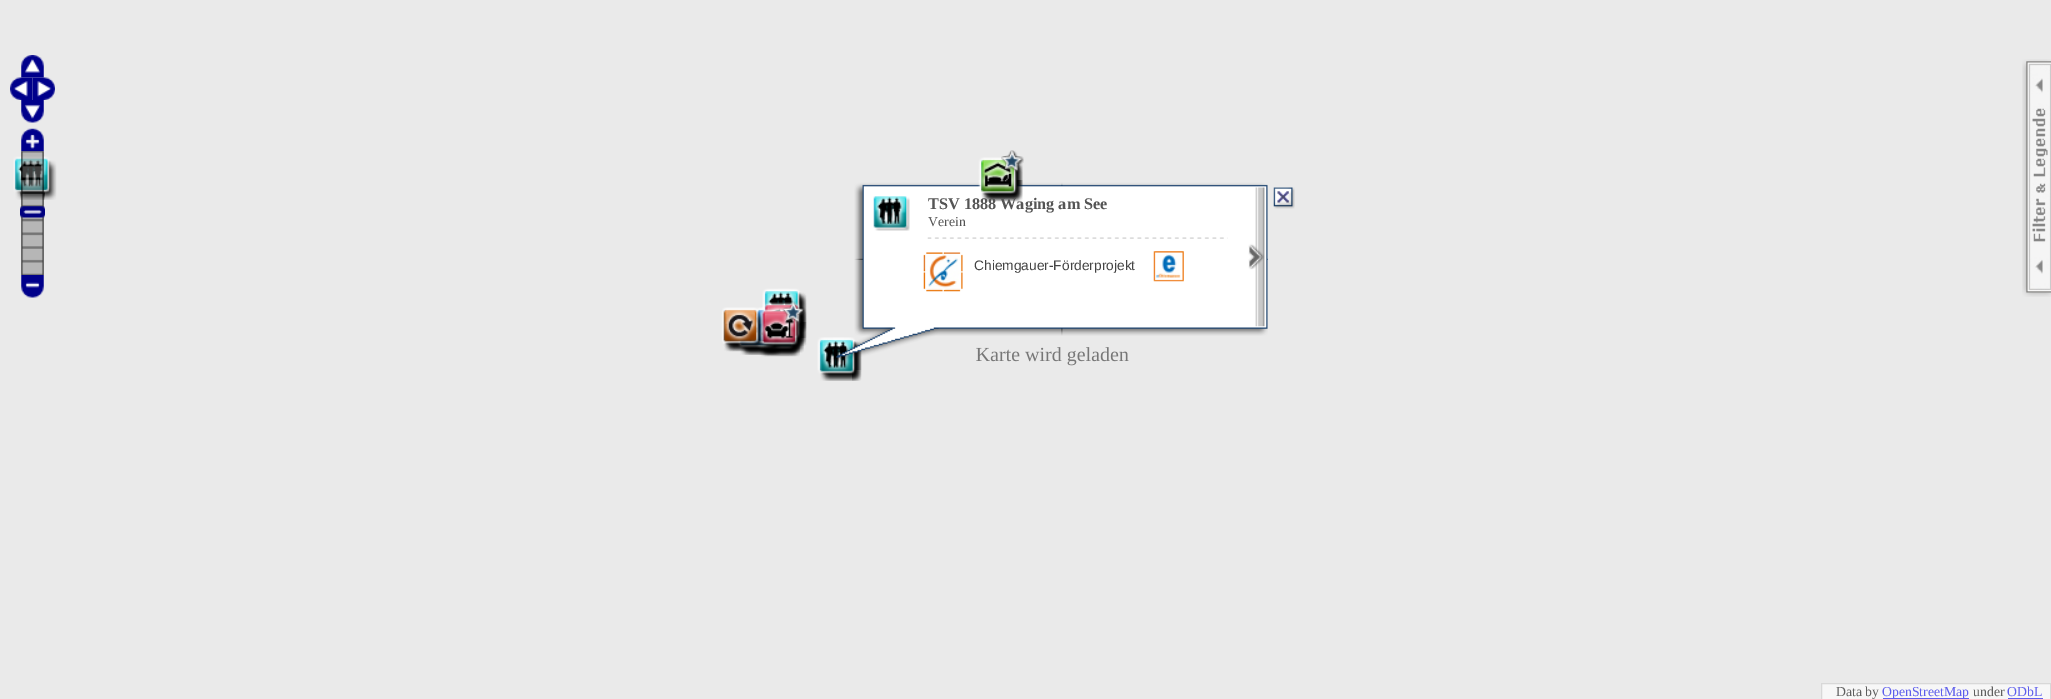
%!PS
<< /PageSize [2051 699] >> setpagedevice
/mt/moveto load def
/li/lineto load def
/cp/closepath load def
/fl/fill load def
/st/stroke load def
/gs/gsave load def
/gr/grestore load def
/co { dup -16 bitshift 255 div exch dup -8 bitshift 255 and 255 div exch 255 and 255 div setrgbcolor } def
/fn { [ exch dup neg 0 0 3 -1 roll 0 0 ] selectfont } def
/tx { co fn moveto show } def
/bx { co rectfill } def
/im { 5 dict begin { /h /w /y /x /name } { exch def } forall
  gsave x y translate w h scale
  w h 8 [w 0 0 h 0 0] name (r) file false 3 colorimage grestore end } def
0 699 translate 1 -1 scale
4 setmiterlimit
0 0 2051 699 16#EAEAEA bx
(media/1.raw) 21 55 23 23 im
(media/2.raw) 10 77 23 23 im
(media/3.raw) 32 77 23 23 im
(media/4.raw) 21 100 23 23 im
(media/14.raw) 1273 187 22 22 im
(media/21.raw) 2022 59 29 238 im
16#F7F7F7 co
1821.5 683.5 mt 2050.5 683.5 li 2050.5 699.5 li 1821.5 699.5 li cp gs fl gr
16#D8D8D8 co
st
1883 698 86 1 16#5E5EEC bx
2008 698 35 1 16#5E5EEC bx
(Data by) 1836 696 /LiberationSerif-Regular 13.75 16#5E5E5E tx
(OpenStreetMap) 1882 696 /LiberationSerif-Regular 13.75 16#5E5EEC tx
(under) 1973 696 /LiberationSerif-Regular 13.75 16#5E5E5E tx
(ODbL) 2007 696 /LiberationSerif-Regular 13.75 16#5E5EEC tx
(Karte wird geladen) 976 361 /LiberationSerif-Regular 20 16#777777 tx
(media/9.raw) 13 150 1011 231 im
(media/8.raw) 21 275 23 23 im
(media/5.raw) 21 128 23 24 im
(media/6.raw) 20 151 25 124 im
(media/7.raw) 20 206 25 12 im
(media/13.raw) 852 180 211 201 im
(media/12.raw) 722 180 546 201 im
(media/11.raw) 855 150 208 186 im
(media/10.raw) 723 150 545 188 im
(media/16.raw) 927 237 301 2 im
(media/19.raw) 1248 187 17 140 im
(Chiemgauer-Förderprojekt) 974 270 /LiberationSans-Regular 13.75 16#444444 tx
(media/17.raw) 923 252 40 40 im
(Verein) 928 226 /LiberationSerif-Regular 13.75 16#555555 tx
(TSV 1888 Waging am See) 928 209 /LiberationSerif-Bold 16.25 16#555555 tx
(media/18.raw) 1153 251 31 31 im
(media/15.raw) 873 196 37 35 im
(media/20.raw) 723 322 216 48 im
showpage
